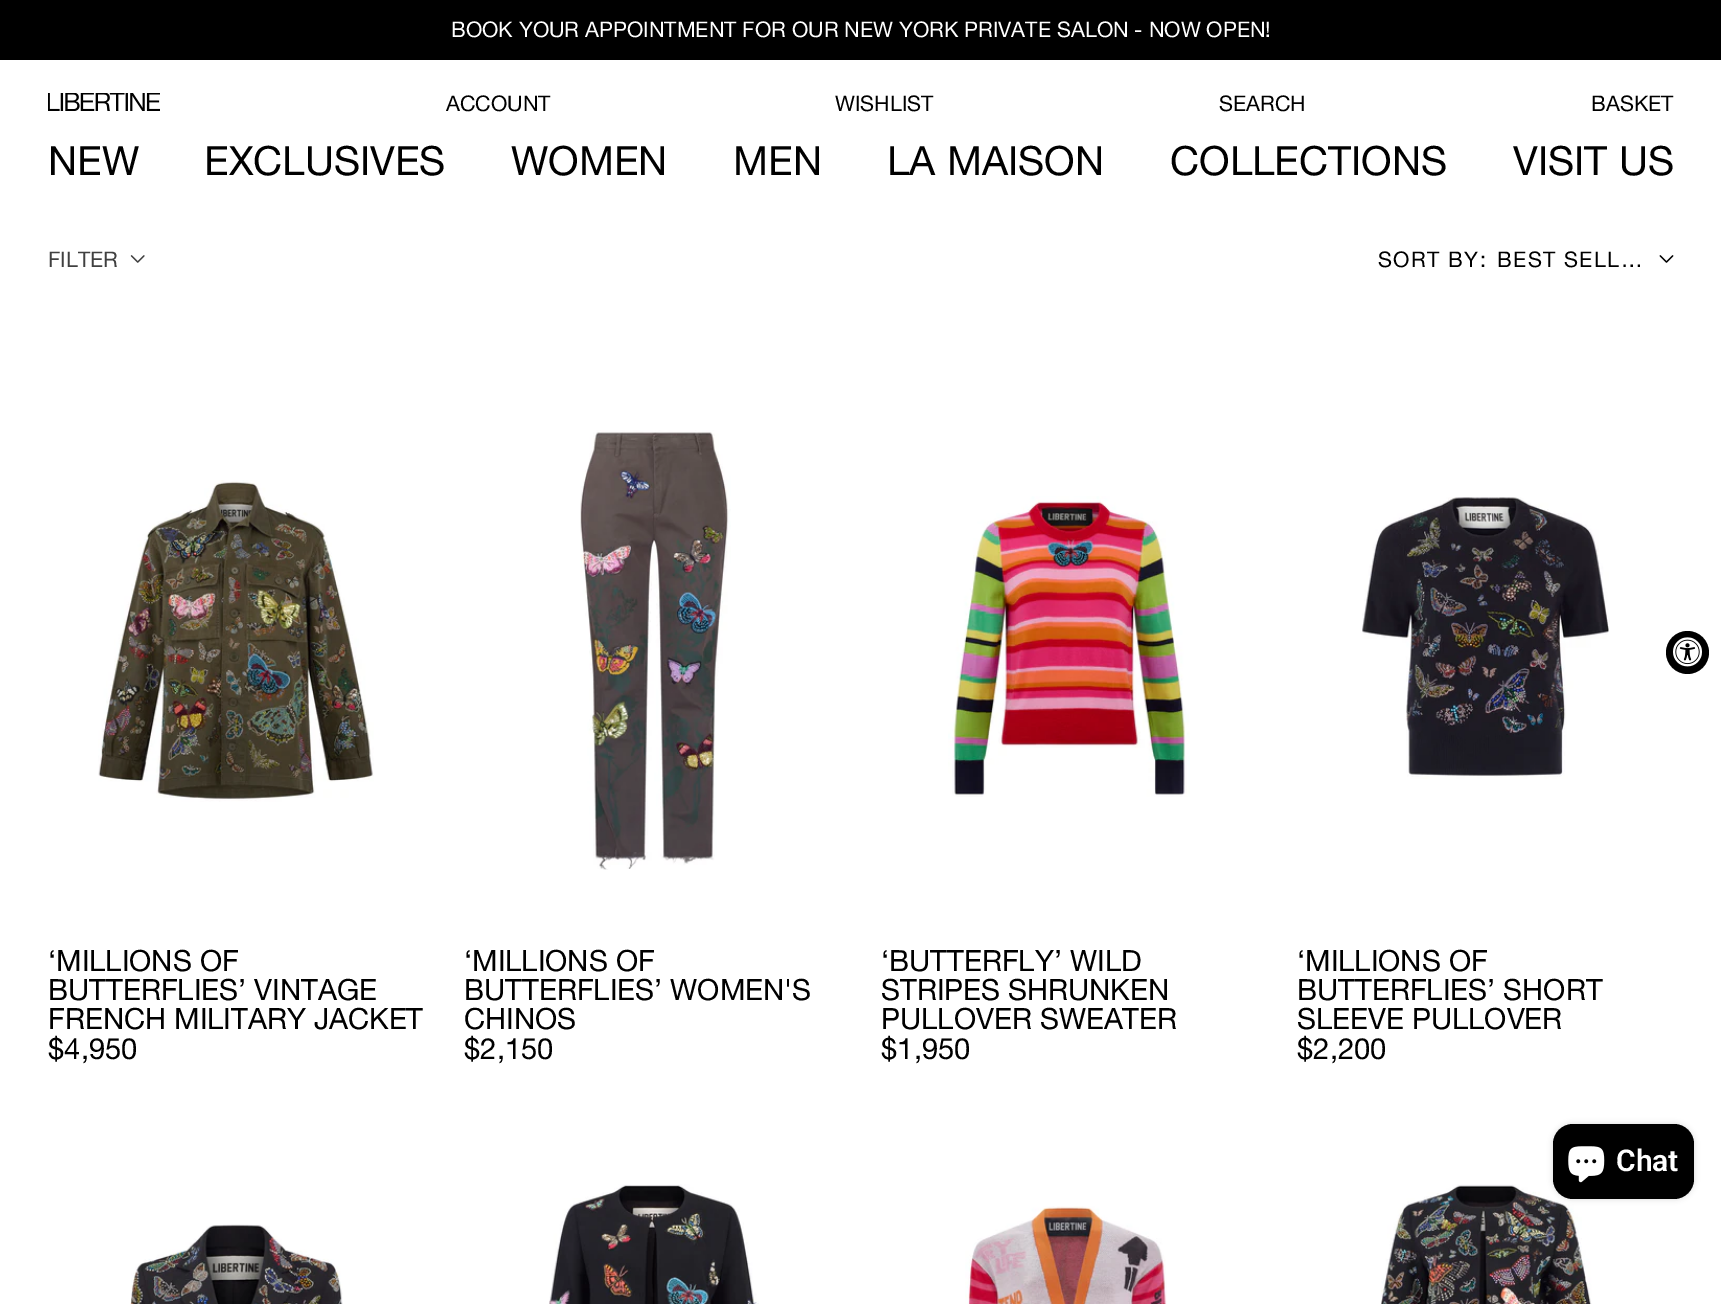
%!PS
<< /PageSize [1721 1304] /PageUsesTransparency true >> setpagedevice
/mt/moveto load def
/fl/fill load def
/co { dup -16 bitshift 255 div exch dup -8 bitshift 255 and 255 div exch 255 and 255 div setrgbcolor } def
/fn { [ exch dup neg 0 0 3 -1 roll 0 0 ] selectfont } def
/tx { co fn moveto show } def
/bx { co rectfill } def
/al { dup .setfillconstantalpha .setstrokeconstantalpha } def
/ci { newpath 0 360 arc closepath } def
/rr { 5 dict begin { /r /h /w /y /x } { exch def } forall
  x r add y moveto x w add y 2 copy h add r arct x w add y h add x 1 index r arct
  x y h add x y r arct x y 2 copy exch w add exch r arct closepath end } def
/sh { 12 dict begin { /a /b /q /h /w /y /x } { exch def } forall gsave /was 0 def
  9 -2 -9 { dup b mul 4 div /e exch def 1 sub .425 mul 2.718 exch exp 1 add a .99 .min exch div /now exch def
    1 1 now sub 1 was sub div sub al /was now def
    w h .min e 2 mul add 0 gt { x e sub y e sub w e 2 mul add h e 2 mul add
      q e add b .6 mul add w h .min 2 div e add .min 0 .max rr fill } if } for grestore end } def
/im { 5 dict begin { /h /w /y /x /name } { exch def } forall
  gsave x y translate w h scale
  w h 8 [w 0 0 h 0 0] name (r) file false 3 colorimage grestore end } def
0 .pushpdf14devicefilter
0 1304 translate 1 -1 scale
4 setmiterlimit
0 0 1721 1304 16#FFFFFF bx
0 0 1721 60 16#000000 bx
(media/1.raw) 48 93 112 18 im
(media/2.raw) 130 255 15 8 im
(media/3.raw) 1659 255 15 8 im
(media/4.raw) 98 480 276 322 im
(media/5.raw) 580 430 151 440 im
(media/6.raw) 948 496 242 301 im
(media/7.raw) 1362 497 248 282 im
(media/8.raw) 130 1224 213 80 im
(media/9.raw) 549 1184 210 120 im
(media/10.raw) 965 1206 202 98 im
(media/11.raw) 1381 1184 211 120 im
1687.5 652.5 21.5 ci fl
(media/12.raw) 1673 637 29 30 im
1553 1124 141 75 20 3 .15 sh
1553 1124 141 75 20 rr fl
(media/13.raw) 1568 1146 37 37 im
(BOOK YOUR APPOINTMENT FOR OUR NEW YORK PRIVATE SALON - NOW OPEN!) 451 37 /HelveticaNeue-Regular 21.5 16#FFFFFF tx
(ACCOUNT) 446 111 /HelveticaNeue-Regular 21.5 16#000000 tx
(WISHLIST) 835 111 /HelveticaNeue-Regular 21.5 16#000000 tx
(SEARCH) 1219 111 /HelveticaNeue-Regular 21.5 16#000000 tx
(BASKET) 1591 111 /HelveticaNeue-Regular 21.5 16#000000 tx
(NEW) 48 175 /HelveticaNeue-Regular 40.25 16#000000 tx
(EXCLUSIVES) 204 175 /HelveticaNeue-Regular 40.25 16#000000 tx
(WOMEN) 511 175 /HelveticaNeue-Regular 40.25 16#000000 tx
(MEN) 733 175 /HelveticaNeue-Regular 40.25 16#000000 tx
(LA MAISON) 887 175 /HelveticaNeue-Regular 40.25 16#000000 tx
(COLLECTIONS) 1170 175 /HelveticaNeue-Regular 40.25 16#000000 tx
(VISIT US) 1513 175 /HelveticaNeue-Regular 40.25 16#000000 tx
(FILTER) 48 267 /HelveticaNeue-Regular 21.5 16#404040 tx
16#000000 co
1378 267 mt 1.4 0 (SORT BY:) ashow
1497 267 mt 1.4 0 (BEST SELL…) ashow
(‘MILLIONS OF) 48 971 /HelveticaNeue-Regular 29.25 16#000000 tx
(BUTTERFLIES’ VINTAGE) 48 1000 /HelveticaNeue-Regular 29.25 16#000000 tx
(FRENCH MILITARY JACKET) 48 1029 /HelveticaNeue-Regular 29.25 16#000000 tx
($4,950) 48 1059 /HelveticaNeue-Regular 29.25 16#000000 tx
(‘MILLIONS OF) 464 971 /HelveticaNeue-Regular 29.25 16#000000 tx
(BUTTERFLIES’ WOMEN'S) 464 1000 /HelveticaNeue-Regular 29.25 16#000000 tx
(CHINOS) 464 1029 /HelveticaNeue-Regular 29.25 16#000000 tx
($2,150) 464 1059 /HelveticaNeue-Regular 29.25 16#000000 tx
(‘BUTTERFLY’ WILD) 881 971 /HelveticaNeue-Regular 29.25 16#000000 tx
(STRIPES SHRUNKEN) 881 1000 /HelveticaNeue-Regular 29.25 16#000000 tx
(PULLOVER SWEATER) 881 1029 /HelveticaNeue-Regular 29.25 16#000000 tx
($1,950) 881 1059 /HelveticaNeue-Regular 29.25 16#000000 tx
(‘MILLIONS OF) 1297 971 /HelveticaNeue-Regular 29.25 16#000000 tx
(BUTTERFLIES’ SHORT) 1297 1000 /HelveticaNeue-Regular 29.25 16#000000 tx
(SLEEVE PULLOVER) 1297 1029 /HelveticaNeue-Regular 29.25 16#000000 tx
($2,200) 1297 1059 /HelveticaNeue-Regular 29.25 16#000000 tx
(Chat) 1616 1171 /Roboto-SemiBold 30 16#FFFFFF tx
.poppdf14devicefilter showpage
